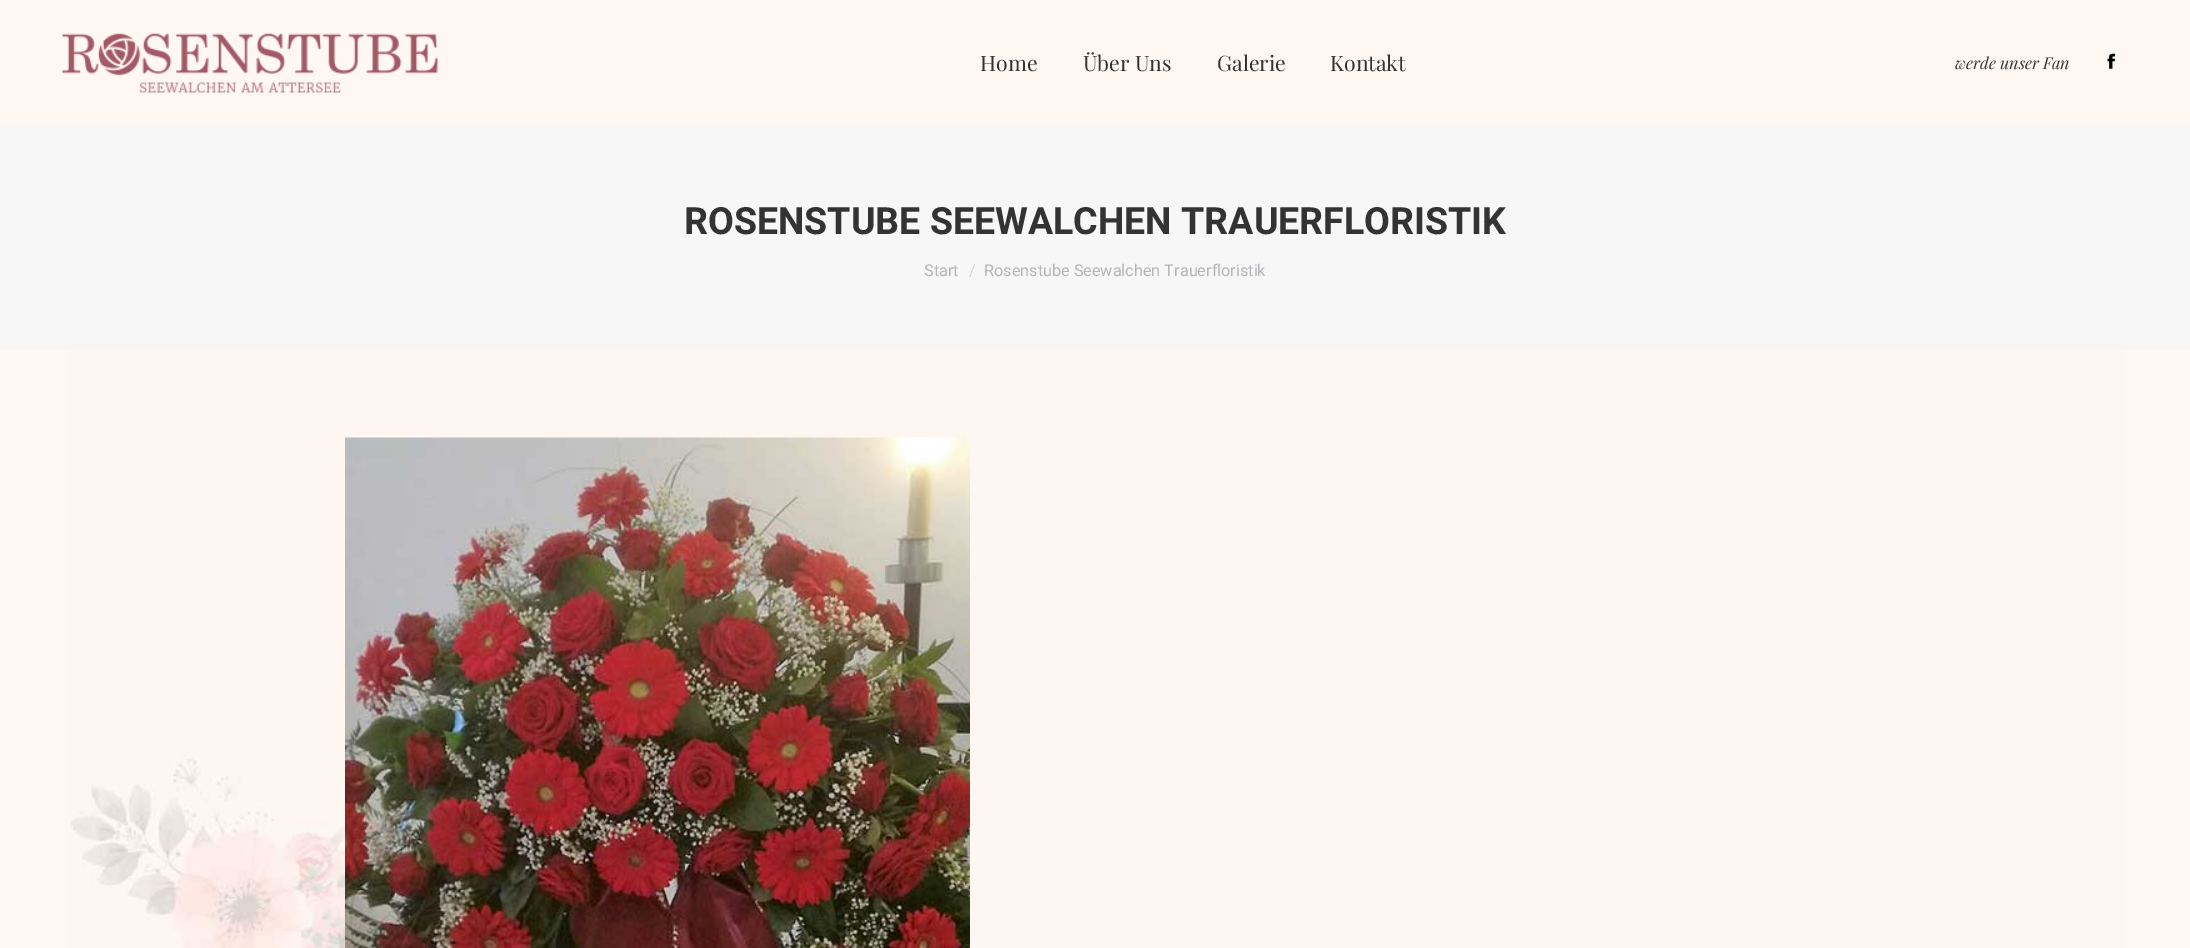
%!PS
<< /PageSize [2190 948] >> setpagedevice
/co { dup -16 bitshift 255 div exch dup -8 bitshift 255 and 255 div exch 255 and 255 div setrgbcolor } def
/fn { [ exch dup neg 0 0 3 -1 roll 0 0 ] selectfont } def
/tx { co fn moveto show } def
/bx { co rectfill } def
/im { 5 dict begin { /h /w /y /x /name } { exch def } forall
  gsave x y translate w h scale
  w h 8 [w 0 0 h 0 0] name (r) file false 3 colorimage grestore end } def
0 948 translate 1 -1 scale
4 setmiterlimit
0 0 2190 948 16#FFF7F1 bx
(media/1.raw) 62 33 376 60 im
(media/2.raw) 2107 53 8 16 im
0 125 2190 225 16#F7F7F7 bx
(media/3.raw) 70 350 2053 598 im
(media/4.raw) 345 437 625 511 im
(Home) 980 71 /PlayfairDisplay-Regular 21.25 16#333333 tx
(Über Uns) 1083 71 /PlayfairDisplay-Regular 21.25 16#333333 tx
(Galerie) 1217 71 /PlayfairDisplay-Regular 21.25 16#333333 tx
(Kontakt) 1330 71 /PlayfairDisplay-Regular 21.25 16#333333 tx
(werde unser Fan) 1955 69 /PlayfairDisplay-Italic 16.25 16#333333 tx
(ROSENSTUBE SEEWALCHEN TRAUERFLORISTIK) 684 234 /Roboto-Bold 37.5 16#333333 tx
(Start) 924 276 /Roboto-Regular 16.25 16#B4B5BB tx
(/) 969 276 /Roboto-Regular 16.25 16#D6D6D9 tx
(Rosenstube Seewalchen Trauerfloristik) 984 276 /Roboto-Regular 16.25 16#B4B5BB tx
showpage
